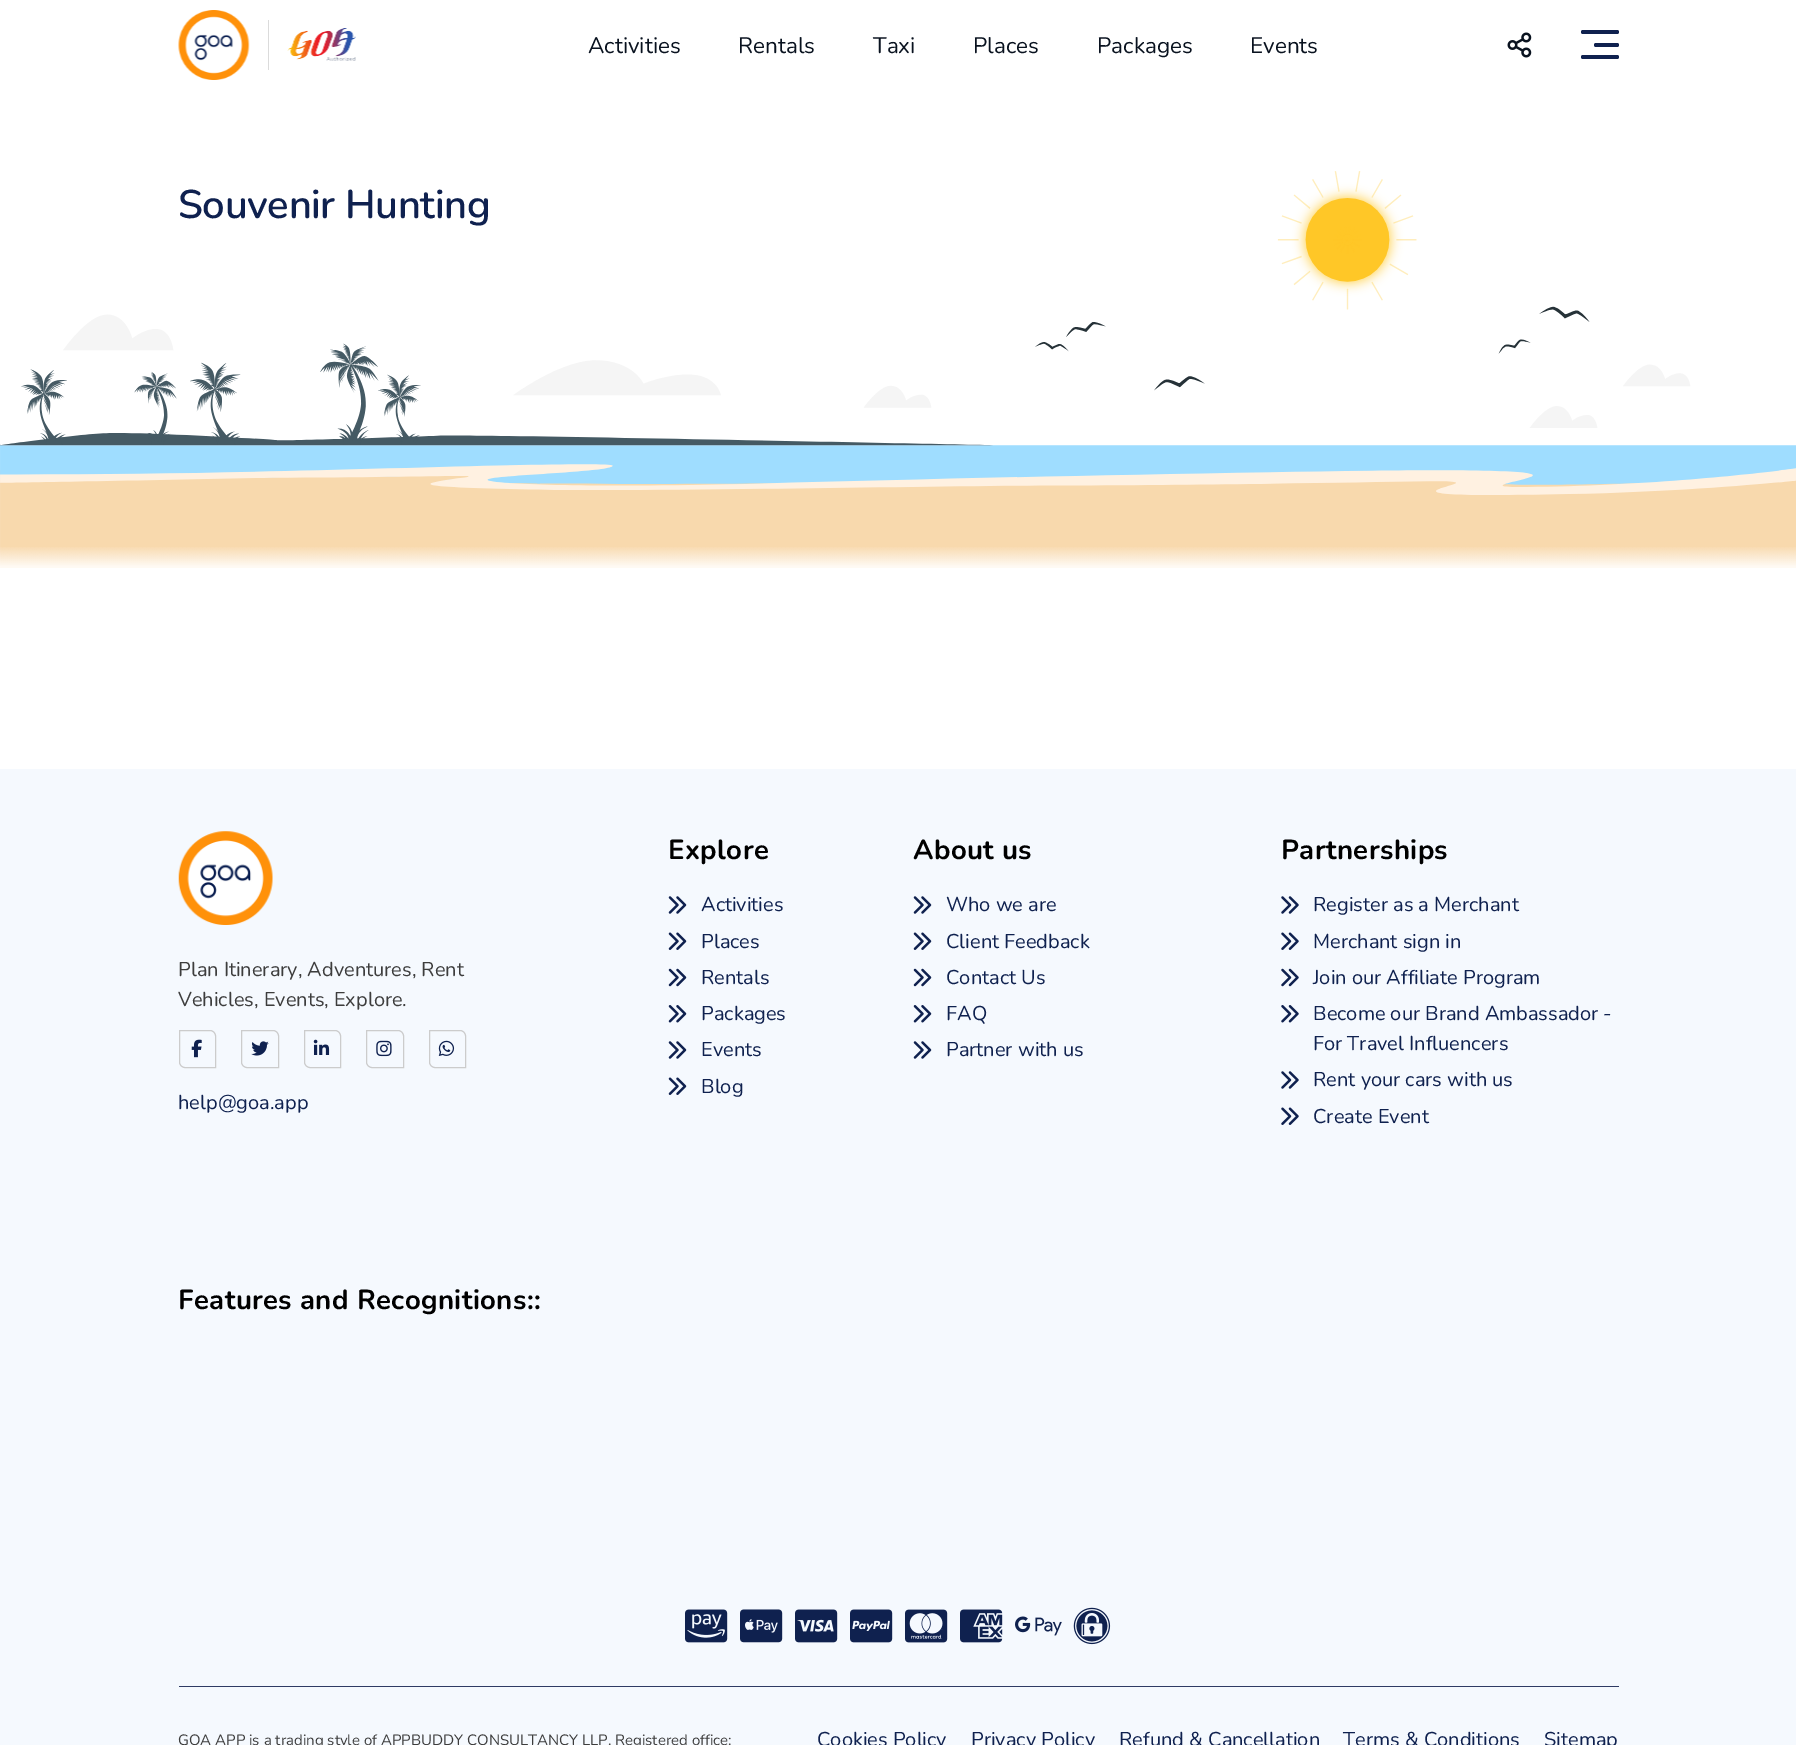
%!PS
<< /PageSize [1796 1745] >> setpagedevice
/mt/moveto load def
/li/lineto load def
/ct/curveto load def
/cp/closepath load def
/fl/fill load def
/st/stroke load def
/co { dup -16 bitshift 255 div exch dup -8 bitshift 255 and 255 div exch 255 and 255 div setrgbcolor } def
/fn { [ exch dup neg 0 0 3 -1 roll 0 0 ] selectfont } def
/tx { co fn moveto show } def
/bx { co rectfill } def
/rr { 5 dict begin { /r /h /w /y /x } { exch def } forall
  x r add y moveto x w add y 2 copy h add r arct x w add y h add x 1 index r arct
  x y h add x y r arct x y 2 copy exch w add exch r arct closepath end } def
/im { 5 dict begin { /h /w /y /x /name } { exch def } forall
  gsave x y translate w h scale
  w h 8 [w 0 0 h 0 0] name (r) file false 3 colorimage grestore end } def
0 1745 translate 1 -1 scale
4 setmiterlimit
0 0 1796 1745 16#FFFFFF bx
(media/1.raw) 178 10 72 70 im
268 20 1 50 16#DBDBDB bx
(media/2.raw) 287 28 69 33 im
(media/3.raw) 1507 32 25 26 im
16#0F214F co
1581 30 38 4 2 rr fl
1594 43 25 4 2 rr fl
1581 55 38 4 2 rr fl
(media/4.raw) 0 306 1796 262 im
(media/5.raw) 1277 171 140 139 im
(media/6.raw) 0 547 1796 21 im
0 769 1796 976 16#F5F9FE bx
(media/7.raw) 178 831 95 94 im
16#CCCCCC co
179.5 1030.5 mt 210 1030.5 li 213 1030.5 215.5 1033 215.5 1036 ct 215.5 1067.5 li 185 1067.5 li 182 1067.5 179.5 1065 179.5 1062 ct cp st
(media/8.raw) 191 1039 11 19 im
241.5 1030.5 mt 273 1030.5 li 276 1030.5 278.5 1033 278.5 1036 ct 278.5 1067.5 li 247 1067.5 li 244 1067.5 241.5 1065 241.5 1062 ct cp st
(media/9.raw) 251 1041 18 15 im
304.5 1030.5 mt 335 1030.5 li 338 1030.5 340.5 1033 340.5 1036 ct 340.5 1067.5 li 310 1067.5 li 307 1067.5 304.5 1065 304.5 1062 ct cp st
(media/10.raw) 313 1039 17 16 im
366.5 1030.5 mt 398 1030.5 li 401 1030.5 403.5 1033 403.5 1036 ct 403.5 1067.5 li 372 1067.5 li 369 1067.5 366.5 1065 366.5 1062 ct cp st
(media/11.raw) 376 1040 16 17 im
429.5 1030.5 mt 460 1030.5 li 463 1030.5 465.5 1033 465.5 1036 ct 465.5 1067.5 li 435 1067.5 li 432 1067.5 429.5 1065 429.5 1062 ct cp st
(media/12.raw) 438 1040 17 16 im
(media/13.raw) 668 896 19 18 im
(media/14.raw) 668 932 19 18 im
(media/15.raw) 668 968 19 19 im
(media/16.raw) 668 1005 19 18 im
(media/13.raw) 668 1041 19 18 im
(media/14.raw) 668 1077 19 18 im
(media/13.raw) 913 896 19 18 im
(media/14.raw) 913 932 19 18 im
(media/15.raw) 913 968 19 19 im
(media/16.raw) 913 1005 19 18 im
(media/13.raw) 913 1041 19 18 im
(media/17.raw) 1281 896 18 18 im
(media/18.raw) 1281 932 18 18 im
(media/19.raw) 1281 968 18 19 im
(media/20.raw) 1281 1005 18 18 im
(media/17.raw) 1281 1071 18 18 im
(media/18.raw) 1281 1107 18 18 im
(media/21.raw) 685 1609 43 34 im
(media/22.raw) 740 1609 43 34 im
(media/23.raw) 795 1609 43 34 im
(media/24.raw) 850 1609 43 34 im
(media/25.raw) 905 1609 43 34 im
(media/26.raw) 960 1609 43 34 im
(media/27.raw) 1015 1616 47 20 im
(media/28.raw) 1073 1607 38 38 im
179 1686 1440 1 16#2F3B64 bx
(Activities) 588 53 /Nunito-Regular 22.5 16#09121F tx
(Rentals) 738 53 /Nunito-Regular 22.5 16#09121F tx
(Taxi) 873 53 /Nunito-Regular 22.5 16#09121F tx
(Places) 973 53 /Nunito-Regular 22.5 16#09121F tx
(Packages) 1097 53 /Nunito-Regular 22.5 16#09121F tx
(Events) 1250 53 /Nunito-Regular 22.5 16#09121F tx
/Nunito-SemiBold 40 fn
16#0F214F co
178 218 mt -.4 0 (Souvenir Hunting) ashow
(Plan Itinerary, Adventures, Rent) 178 976 /Nunito-Regular 20 16#3D3D3D tx
(Vehicles, Events, Explore.) 178 1006 /Nunito-Regular 20 16#3D3D3D tx
(help@goa.app) 178 1109 /Nunito-Regular 20 16#0F214F tx
/Nunito-Bold 27.5 fn
16#000000 co
668 859 mt .4 0 (Explore) ashow
(Activities) 701 911 /Nunito-Regular 20 16#0F214F tx
(Places) 701 948 /Nunito-Regular 20 16#0F214F tx
(Rentals) 701 984 /Nunito-Regular 20 16#0F214F tx
(Packages) 701 1020 /Nunito-Regular 20 16#0F214F tx
(Events) 701 1056 /Nunito-Regular 20 16#0F214F tx
(Blog) 701 1093 /Nunito-Regular 20 16#0F214F tx
/Nunito-Bold 27.5 fn
16#000000 co
913 859 mt .4 0 (About us) ashow
(Who we are) 946 911 /Nunito-Regular 20 16#0F214F tx
(Client Feedback) 946 948 /Nunito-Regular 20 16#0F214F tx
(Contact Us) 946 984 /Nunito-Regular 20 16#0F214F tx
(FAQ) 946 1020 /Nunito-Regular 20 16#0F214F tx
(Partner with us) 946 1056 /Nunito-Regular 20 16#0F214F tx
/Nunito-Bold 27.5 fn
16#000000 co
1281 859 mt .4 0 (Partnerships) ashow
(Register as a Merchant) 1313 911 /Nunito-Regular 20 16#0F214F tx
(Merchant sign in) 1313 948 /Nunito-Regular 20 16#0F214F tx
(Join our Affiliate Program) 1313 984 /Nunito-Regular 20 16#0F214F tx
(Become our Brand Ambassador -) 1313 1020 /Nunito-Regular 20 16#0F214F tx
(For Travel Influencers) 1313 1050 /Nunito-Regular 20 16#0F214F tx
(Rent your cars with us) 1313 1086 /Nunito-Regular 20 16#0F214F tx
(Create Event) 1313 1123 /Nunito-Regular 20 16#0F214F tx
/Nunito-Bold 27.5 fn
16#000000 co
178 1309 mt .4 0 (Features and Recognitions::) ashow
(GOA APP is a trading style of APPBUDDY CONSULTANCY LLP. Registered office:) 178 1745 /Nunito-Regular 15 16#3D3D3D tx
(Cookies Policy) 817 1746 /Nunito-Regular 20 16#0F214F tx
(Privacy Policy) 971 1746 /Nunito-Regular 20 16#0F214F tx
(Refund & Cancellation) 1119 1746 /Nunito-Regular 20 16#0F214F tx
(Terms & Conditions) 1343 1746 /Nunito-Regular 20 16#0F214F tx
(Sitemap) 1544 1746 /Nunito-Regular 20 16#0F214F tx
showpage
